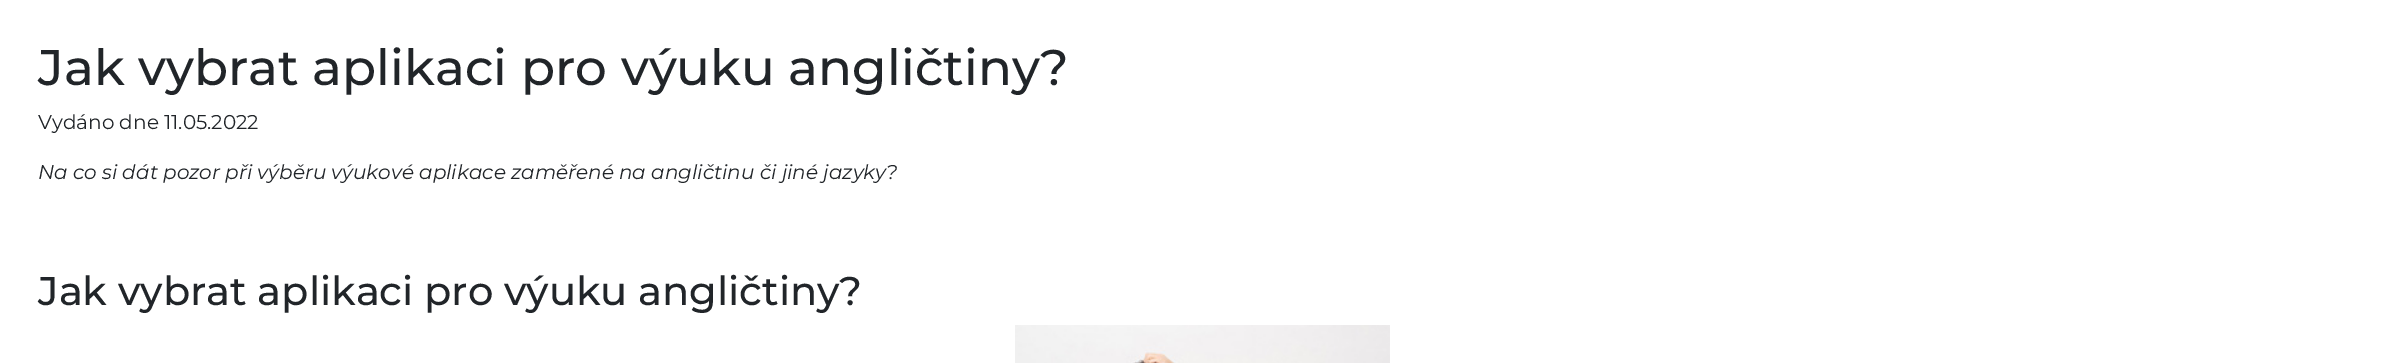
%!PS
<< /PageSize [2404 363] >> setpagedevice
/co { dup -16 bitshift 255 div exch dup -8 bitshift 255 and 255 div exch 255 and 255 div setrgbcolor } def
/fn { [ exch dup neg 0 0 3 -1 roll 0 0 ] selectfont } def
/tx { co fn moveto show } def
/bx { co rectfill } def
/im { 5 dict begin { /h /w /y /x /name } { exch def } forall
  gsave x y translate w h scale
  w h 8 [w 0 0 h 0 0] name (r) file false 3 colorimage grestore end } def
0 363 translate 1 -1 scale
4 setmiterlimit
0 0 2404 363 16#FFFFFF bx
(media/1.raw) 1015 325 375 38 im
(Jak vybrat aplikaci pro výuku angličtiny?) 38 85 /Montserrat-Medium 50 16#212529 tx
(Vydáno dne 11.05.2022) 38 129 /Montserrat-Regular 20 16#212529 tx
(Na co si dát pozor při výběru výukové aplikace zaměřené na angličtinu či jiné jazyky?) 38 179 /Montserrat-Italic 20 16#212529 tx
(Jak vybrat aplikaci pro výuku angličtiny?) 38 305 /Montserrat-Medium 40 16#212529 tx
showpage
